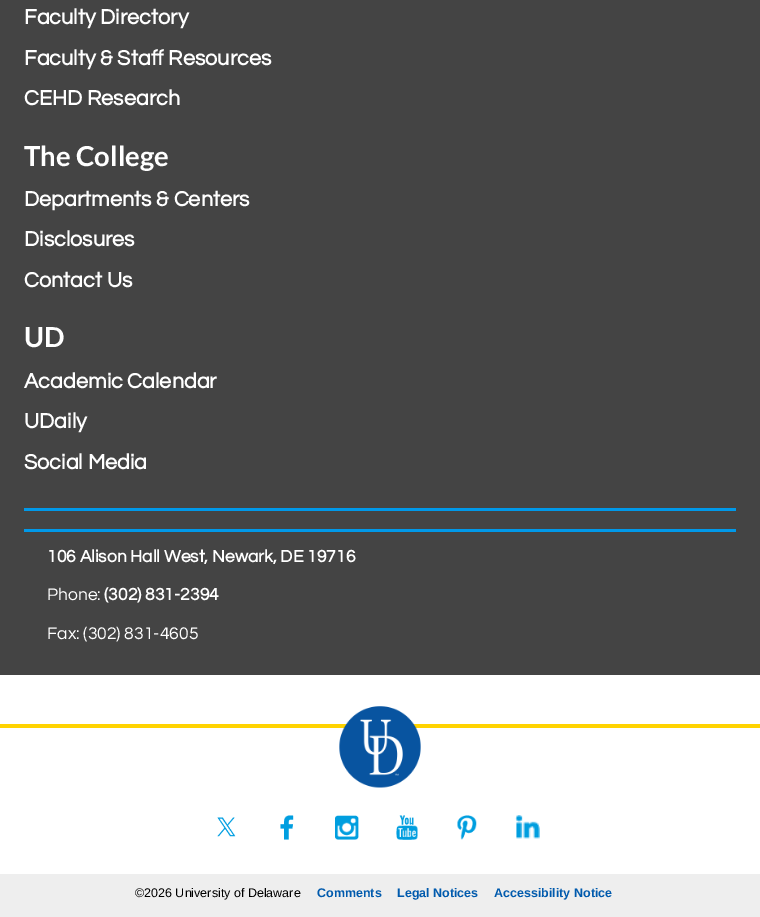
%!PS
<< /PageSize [760 917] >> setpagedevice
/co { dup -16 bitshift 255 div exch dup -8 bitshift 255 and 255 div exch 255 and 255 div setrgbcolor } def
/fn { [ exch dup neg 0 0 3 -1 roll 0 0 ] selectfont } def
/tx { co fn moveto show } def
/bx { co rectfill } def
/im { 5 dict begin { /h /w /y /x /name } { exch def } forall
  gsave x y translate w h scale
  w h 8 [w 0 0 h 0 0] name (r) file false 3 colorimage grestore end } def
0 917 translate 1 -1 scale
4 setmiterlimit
0 0 760 917 16#FFFFFF bx
0 0 760 675 16#444444 bx
24 508 712 3 16#0099E9 bx
24 529 712 3 16#0099E9 bx
0 724 760 4 16#FFD300 bx
(media/1.raw) 339 706 82 82 im
(media/2.raw) 217 817 19 20 im
(media/3.raw) 280 815 14 25 im
(media/4.raw) 335 815 24 25 im
(media/5.raw) 396 815 22 25 im
(media/6.raw) 457 815 20 25 im
(media/7.raw) 515 815 25 24 im
0 874 760 43 16#EEEEEE bx
(Faculty Directory) 24 24 /Questrial-Bold 21.6 16#FFFFFF tx
(Faculty & Staff Resources) 24 65 /Questrial-Bold 21.6 16#FFFFFF tx
(CEHD Research) 24 105 /Questrial-Bold 21.6 16#FFFFFF tx
(The College) 24 166 /Lato-Bold 27.5 16#FFFFFF tx
(Departments & Centers) 24 206 /Questrial-Bold 21.6 16#FFFFFF tx
(Disclosures) 24 246 /Questrial-Bold 21.6 16#FFFFFF tx
(Contact Us) 24 287 /Questrial-Bold 21.6 16#FFFFFF tx
(UD) 24 347 /Lato-Bold 27.5 16#FFFFFF tx
(Academic Calendar) 24 388 /Questrial-Bold 21.6 16#FFFFFF tx
(UDaily) 24 428 /Questrial-Bold 21.6 16#FFFFFF tx
(Social Media) 24 469 /Questrial-Bold 21.6 16#FFFFFF tx
(106 Alison Hall West, Newark, DE 19716) 47 562 /Questrial-Bold 17.5 16#FFFFFF tx
(Phone:) 47 600 /Questrial-Regular 17.5 16#FFFFFF tx
(\(302\) 831-2394) 104 600 /Questrial-Bold 17.5 16#FFFFFF tx
(Fax: \(302\) 831-4605) 47 639 /Questrial-Regular 17.5 16#FFFFFF tx
(©2026 University of Delaware) 135 897 /LiberationSans-Regular 12.5 16#000000 tx
(Comments) 317 897 /LiberationSans-Bold 12.5 16#005AAD tx
(Legal Notices) 397 897 /LiberationSans-Bold 12.5 16#005AAD tx
(Accessibility Notice) 494 897 /LiberationSans-Bold 12.5 16#005AAD tx
showpage
